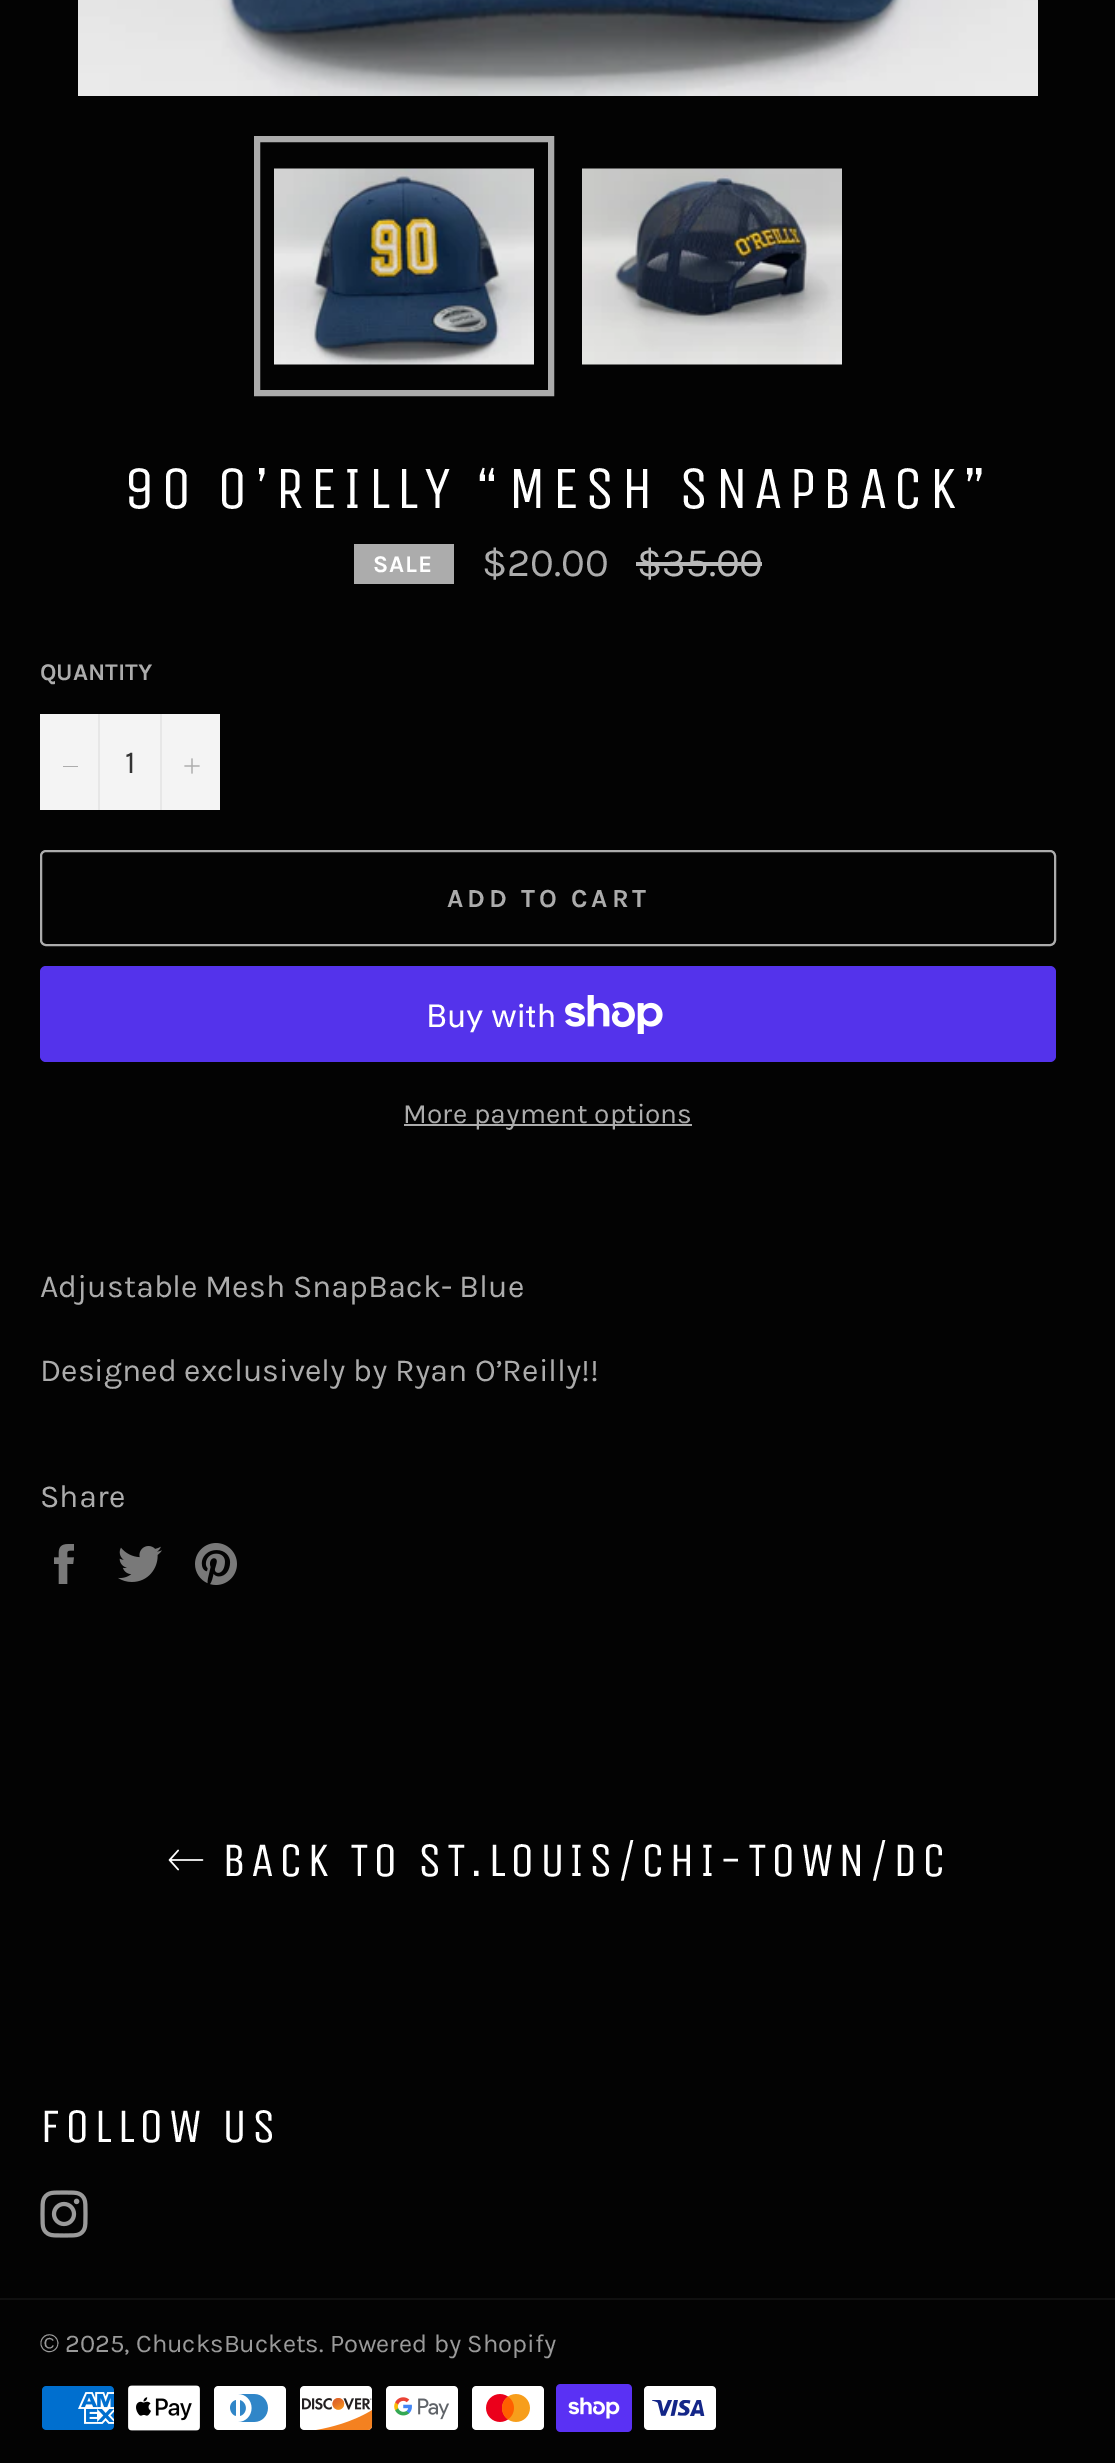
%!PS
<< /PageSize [1115 2463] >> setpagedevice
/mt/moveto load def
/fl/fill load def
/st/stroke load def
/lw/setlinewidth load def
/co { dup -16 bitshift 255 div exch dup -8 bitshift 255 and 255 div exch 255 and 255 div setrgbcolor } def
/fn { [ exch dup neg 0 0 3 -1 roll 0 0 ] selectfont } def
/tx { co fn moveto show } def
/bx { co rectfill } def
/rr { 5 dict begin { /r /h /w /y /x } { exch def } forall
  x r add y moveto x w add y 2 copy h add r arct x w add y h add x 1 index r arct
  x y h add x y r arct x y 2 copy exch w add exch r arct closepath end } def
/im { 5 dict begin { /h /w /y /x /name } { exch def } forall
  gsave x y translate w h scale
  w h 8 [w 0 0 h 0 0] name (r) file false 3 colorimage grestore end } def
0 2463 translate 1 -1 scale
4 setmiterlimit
0 0 1115 2463 16#030303 bx
(media/1.raw) 78 0 960 96 im
(media/2.raw) 274 168 260 197 im
16#ACACAC co
6 lw
257 139 294 254 rectstroke
(media/3.raw) 582 168 260 197 im
354 544 100 40 16#ACACAC bx
636 562 126 4 16#B9B9B9 bx
40 714 180 96 16#F4F4F4 bx
98 714 2 96 16#E7E7E7 bx
63 766 15 1 16#ACACAC bx
160 714 2 96 16#E7E7E7 bx
(media/4.raw) 184 758 16 16 im
16#ACACAC co
2 lw
41 851 1014 94 5 rr st
16#5433EB co
40 966 1016 96 6 rr fl
(media/5.raw) 565 995 98 39 im
404 1124 288 2 16#ACACAC bx
(media/6.raw) 54 1544 20 40 im
(media/7.raw) 118 1546 44 36 im
(media/8.raw) 195 1543 42 42 im
(media/9.raw) 168 1849 36 22 im
(media/10.raw) 40 2190 48 48 im
0 2298 1115 2 16#101010 bx
(media/11.raw) 42 2386 72 44 im
(media/12.raw) 128 2385 72 46 im
(media/13.raw) 214 2386 72 44 im
(media/14.raw) 300 2386 73 44 im
(media/15.raw) 386 2386 72 44 im
(media/16.raw) 472 2386 72 44 im
(media/17.raw) 556 2384 76 48 im
(media/18.raw) 644 2386 72 44 im
/UnicaOne-Regular 60 fn
16#FFFFFF co
124 508 mt 6 0 (90 O’REILLY “MESH SNAPBACK”) ashow
/Karla-Bold 24 fn
373 572 mt 1 0 (SALE) ashow
($20.00) 482 576 /Karla-Regular 40 16#ACACAC tx
($35.00) 637 576 /Karla-Regular 40 16#B9B9B9 tx
(QUANTITY) 40 680 /Karla-Bold 24 16#ACACAC tx
(1) 125 773 /Karla-Regular 32 16#333333 tx
/Karla-Bold 26 fn
16#ACACAC co
447 907 mt 3.9 0 (ADD TO CART) ashow
(Buy with) 426 1027 /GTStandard-Regular 32 16#FFFFFF tx
(More payment options) 403 1123 /Karla-Regular 28 16#ACACAC tx
(Adjustable Mesh SnapBack- Blue) 40 1297 /Karla-Regular 32 16#ACACAC tx
(Designed exclusively by Ryan O’Reilly!!) 40 1381 /Karla-Regular 32 16#ACACAC tx
(Share) 40 1507 /Karla-Regular 32 16#ACACAC tx
/UnicaOne-Regular 48 fn
16#FFFFFF co
222 1876 mt 4.8 0 (BACK TO ST.LOUIS/CHI-TOWN/DC) ashow
40 2142 mt 4.8 0 (FOLLOW US) ashow
(©) 40 2352 /LiberationSans-Regular 25.6 16#9A9A9A tx
(2025, ChucksBuckets. Powered by Shopify) 65 2352 /Karla-Regular 25.6 16#9A9A9A tx
showpage
